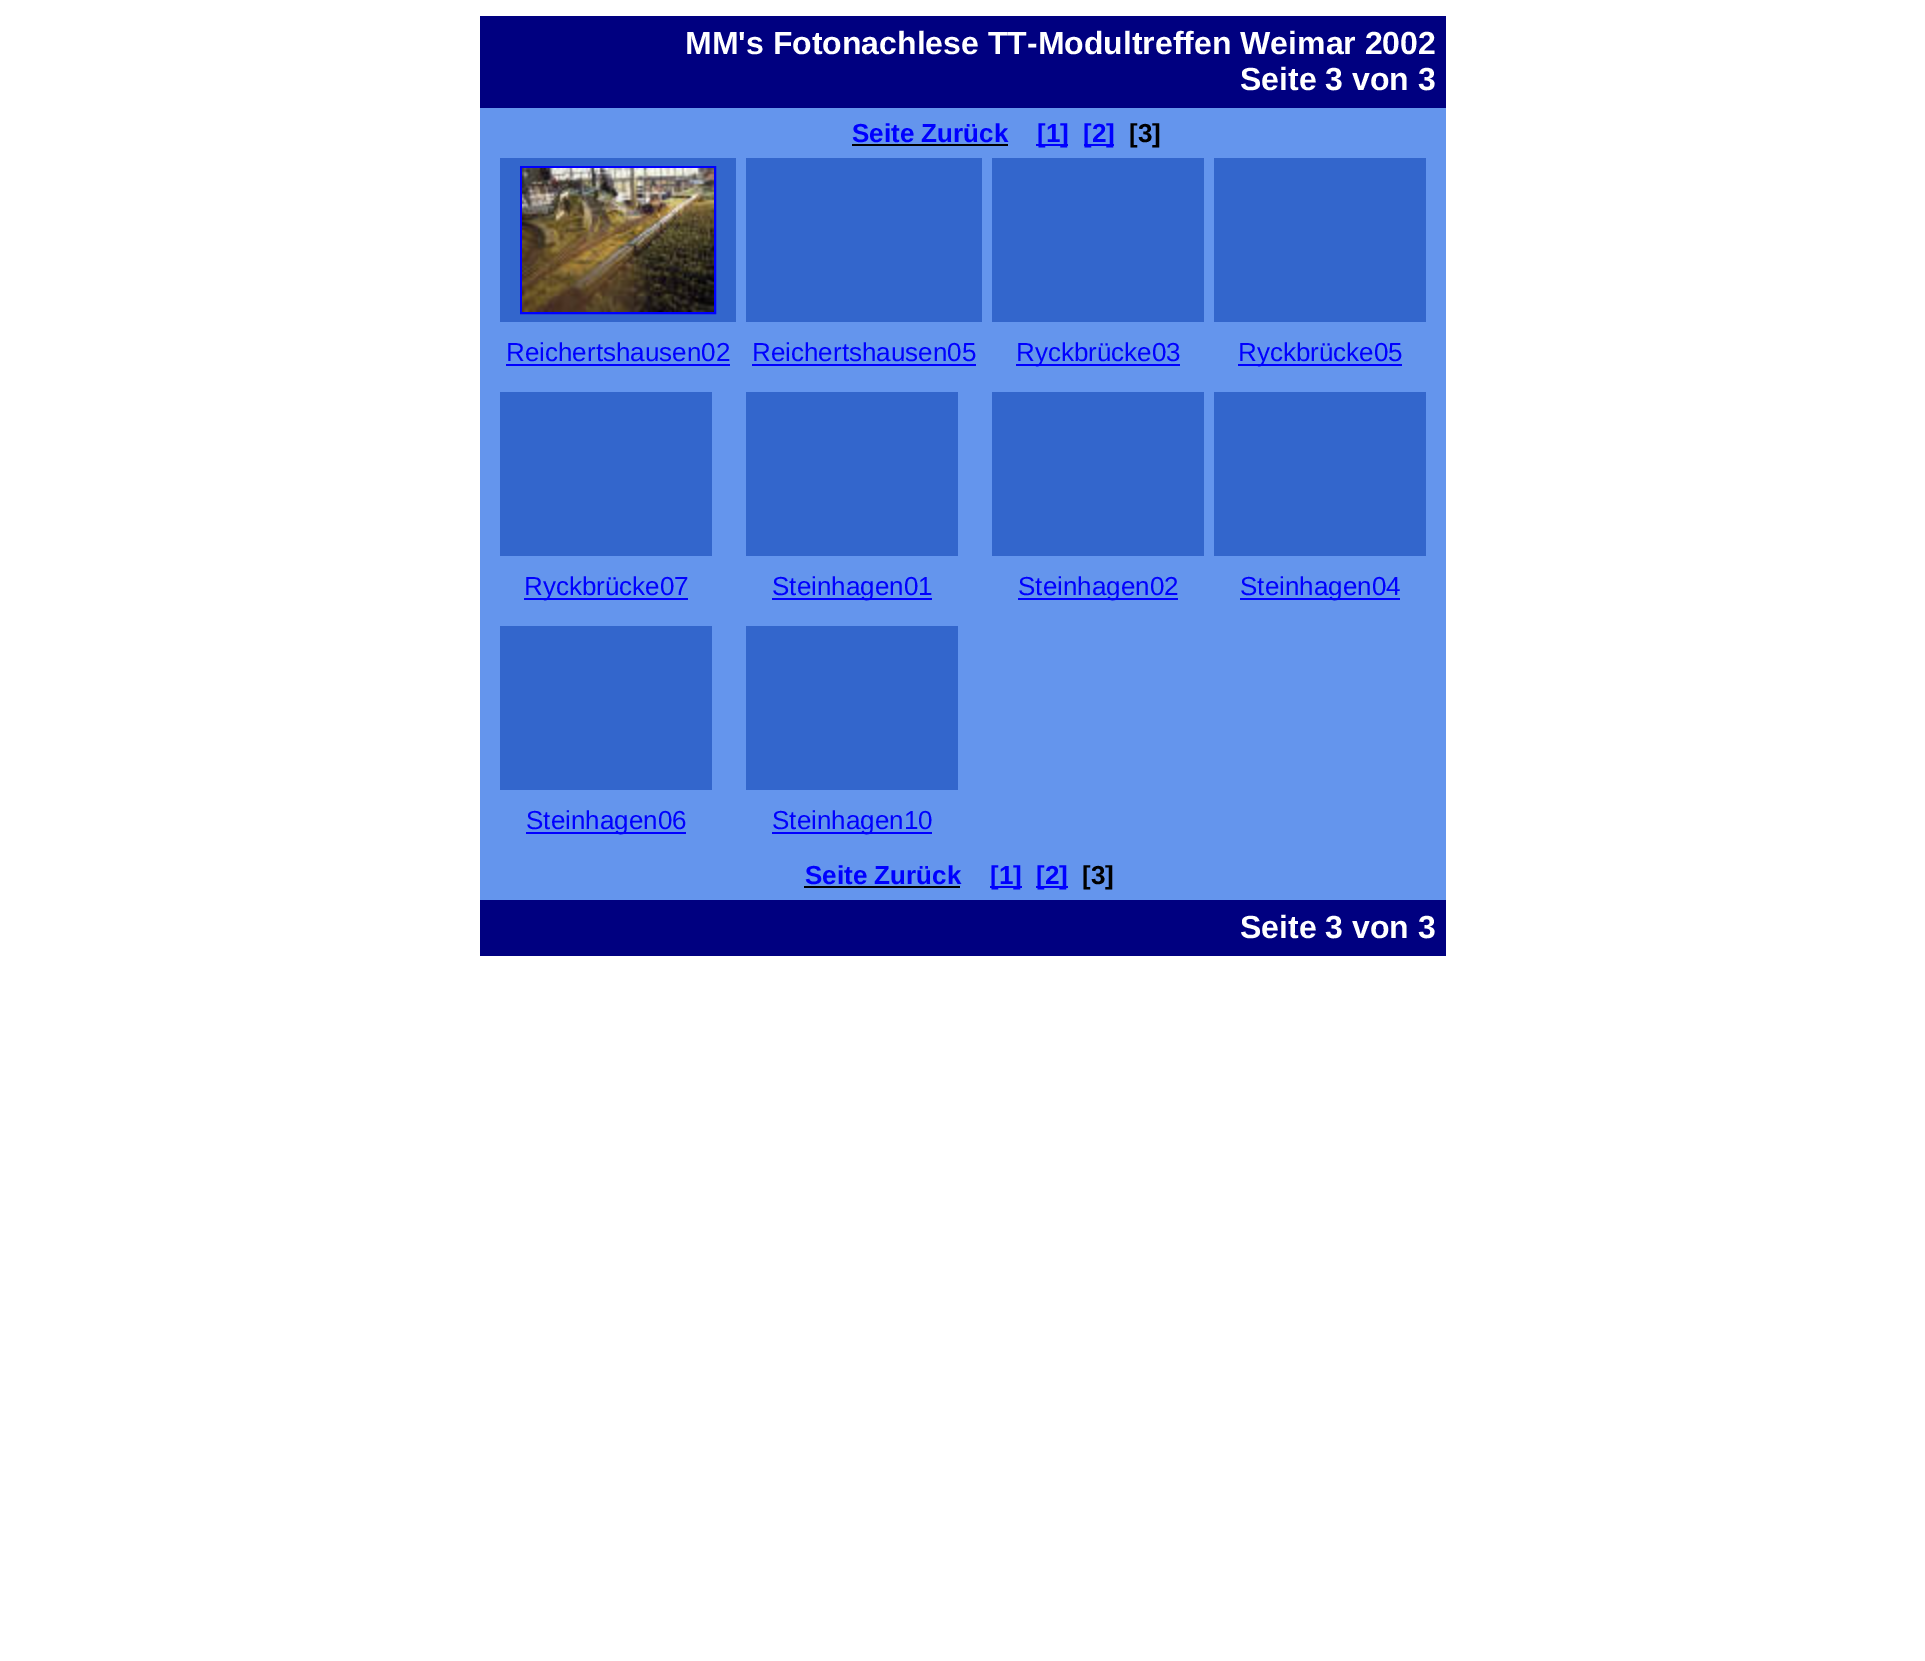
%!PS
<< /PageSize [1925 1661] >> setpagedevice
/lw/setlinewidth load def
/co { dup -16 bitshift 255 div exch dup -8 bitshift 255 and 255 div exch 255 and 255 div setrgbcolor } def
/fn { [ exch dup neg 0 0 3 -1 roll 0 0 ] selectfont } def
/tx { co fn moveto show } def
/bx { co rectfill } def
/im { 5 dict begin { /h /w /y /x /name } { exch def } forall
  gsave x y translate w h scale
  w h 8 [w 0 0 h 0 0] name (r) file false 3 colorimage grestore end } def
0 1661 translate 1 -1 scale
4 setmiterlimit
0 0 1925 1661 16#FFFFFF bx
480 16 966 92 16#000080 bx
480 108 966 792 16#6495ED bx
852 144 156 2 16#000000 bx
1036 144 32 2 16#0000FF bx
1084 144 30 2 16#0000FF bx
500 158 236 164 16#3366CC bx
16#0000FF co
2 lw
521 167 194 146 rectstroke
(media/1.raw) 522 168 192 144 im
506 364 224 2 16#0000FF bx
746 158 236 164 16#3366CC bx
752 364 224 2 16#0000FF bx
992 158 212 164 16#3366CC bx
1016 364 164 2 16#0000FF bx
1214 158 212 164 16#3366CC bx
1238 364 164 2 16#0000FF bx
500 392 212 164 16#3366CC bx
524 598 164 2 16#0000FF bx
746 392 212 164 16#3366CC bx
772 598 160 2 16#0000FF bx
992 392 212 164 16#3366CC bx
1018 598 160 2 16#0000FF bx
1214 392 212 164 16#3366CC bx
1240 598 160 2 16#0000FF bx
500 626 212 164 16#3366CC bx
526 832 160 2 16#0000FF bx
746 626 212 164 16#3366CC bx
772 832 160 2 16#0000FF bx
804 886 156 2 16#000000 bx
990 886 32 2 16#0000FF bx
1036 886 32 2 16#0000FF bx
480 900 966 56 16#000080 bx
(MM's Fotonachlese TT-Modultreffen Weimar 2002) 685 54 /LiberationSans-Bold 32 16#FFFFFF tx
(Seite 3 von 3) 1240 90 /LiberationSans-Bold 32 16#FFFFFF tx
(Seite Zurück) 852 142 /LiberationSans-Bold 26 16#0000FF tx
([1]) 1037 142 /LiberationSans-Bold 26 16#0000FF tx
([2]) 1083 142 /LiberationSans-Bold 26 16#0000FF tx
([3]) 1129 142 /LiberationSans-Bold 26 16#000000 tx
(Reichertshausen02) 506 361 /LiberationSans-Regular 26 16#0000FF tx
(Reichertshausen05) 752 361 /LiberationSans-Regular 26 16#0000FF tx
(Ryckbrücke03) 1016 361 /LiberationSans-Regular 26 16#0000FF tx
(Ryckbrücke05) 1238 361 /LiberationSans-Regular 26 16#0000FF tx
(Ryckbrücke07) 524 595 /LiberationSans-Regular 26 16#0000FF tx
(Steinhagen01) 772 595 /LiberationSans-Regular 26 16#0000FF tx
(Steinhagen02) 1018 595 /LiberationSans-Regular 26 16#0000FF tx
(Steinhagen04) 1240 595 /LiberationSans-Regular 26 16#0000FF tx
(Steinhagen06) 526 829 /LiberationSans-Regular 26 16#0000FF tx
(Steinhagen10) 772 829 /LiberationSans-Regular 26 16#0000FF tx
(Seite Zurück) 805 884 /LiberationSans-Bold 26 16#0000FF tx
([1]) 990 884 /LiberationSans-Bold 26 16#0000FF tx
([2]) 1036 884 /LiberationSans-Bold 26 16#0000FF tx
([3]) 1082 884 /LiberationSans-Bold 26 16#000000 tx
(Seite 3 von 3) 1240 938 /LiberationSans-Bold 32 16#FFFFFF tx
showpage
